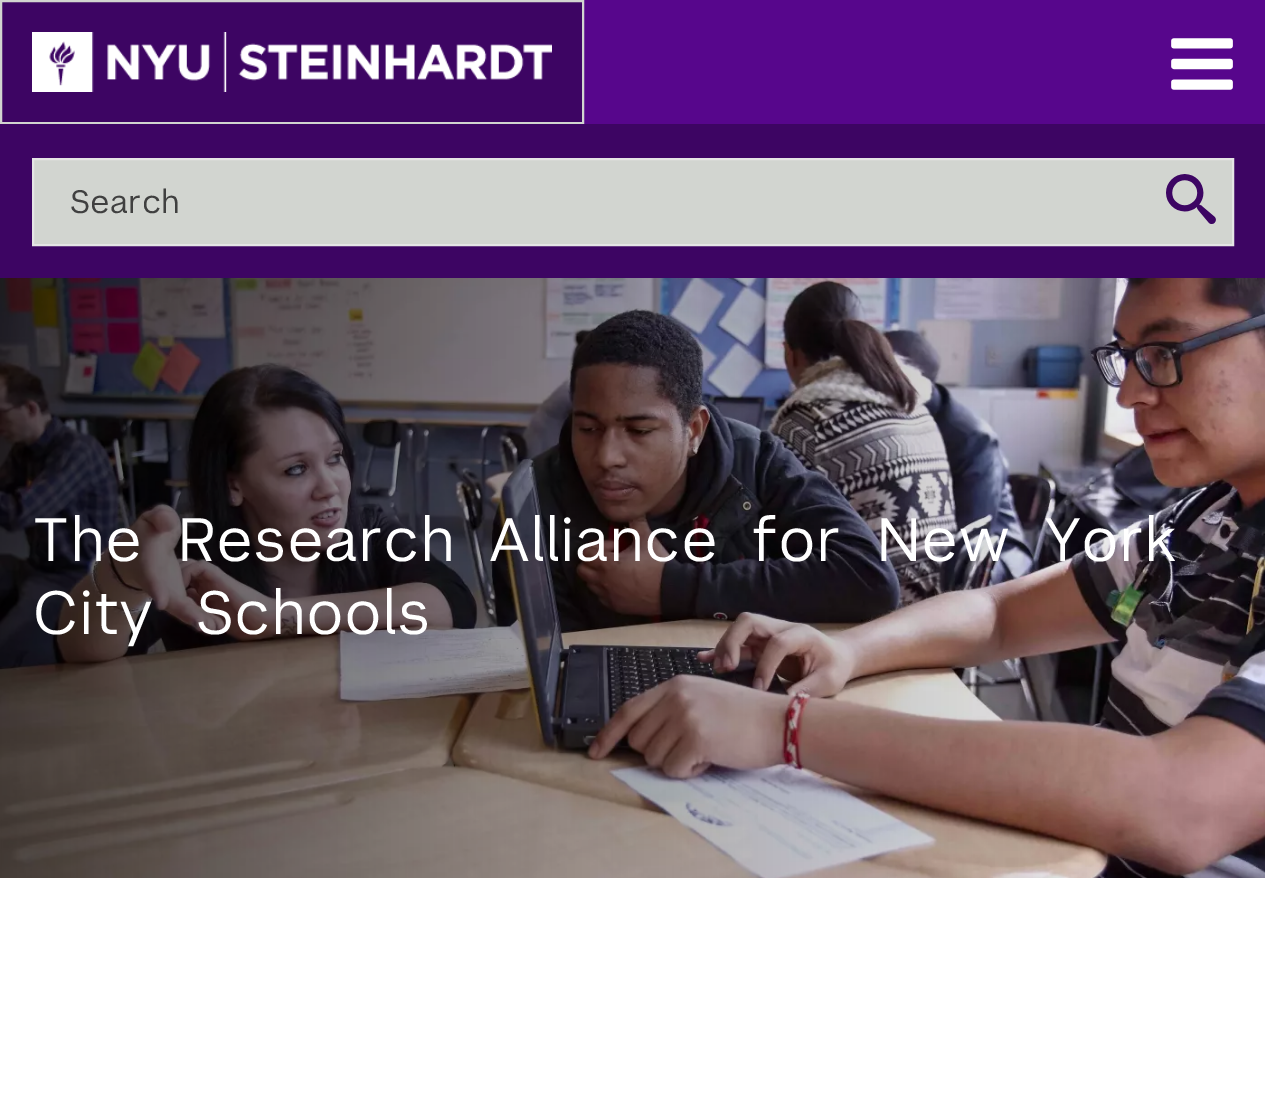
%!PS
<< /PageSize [1265 1113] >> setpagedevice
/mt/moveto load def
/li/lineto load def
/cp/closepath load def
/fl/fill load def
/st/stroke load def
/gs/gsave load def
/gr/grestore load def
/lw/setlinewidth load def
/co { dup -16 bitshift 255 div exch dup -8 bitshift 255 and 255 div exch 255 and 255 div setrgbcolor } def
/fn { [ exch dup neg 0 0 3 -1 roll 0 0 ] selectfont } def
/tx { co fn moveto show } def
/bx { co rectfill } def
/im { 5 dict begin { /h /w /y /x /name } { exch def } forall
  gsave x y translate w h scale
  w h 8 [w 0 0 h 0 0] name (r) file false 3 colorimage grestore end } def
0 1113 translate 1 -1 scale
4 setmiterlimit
0 0 1265 1113 16#57068C bx
2 2 580 120 16#3D0563 bx
(media/1.raw) 32 32 520 60 im
16#D2D5D0 co
2 lw
1 1 582 122 rectstroke
(media/2.raw) 1171 38 62 52 im
0 124 1265 154 16#3D0563 bx
16#D2D5D0 co
33 159 mt 1233 159 li 1233 245 li 33 245 li cp gs fl gr
16#E5E5E5 co
st
(media/3.raw) 1166 174 50 50 im
(media/4.raw) 0 278 1265 600 im
0 878 1265 235 16#FFFFFF bx
(Search) 70 213 /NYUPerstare-Regular 32.5 16#404040 tx
/NYUPerstare-Regular 61.25 fn
16#FFFFFF co
32 561 mt 16 0 32 (The Research Alliance for New York) widthshow
32 634 mt 25 0 32 (City Schools) widthshow
showpage
